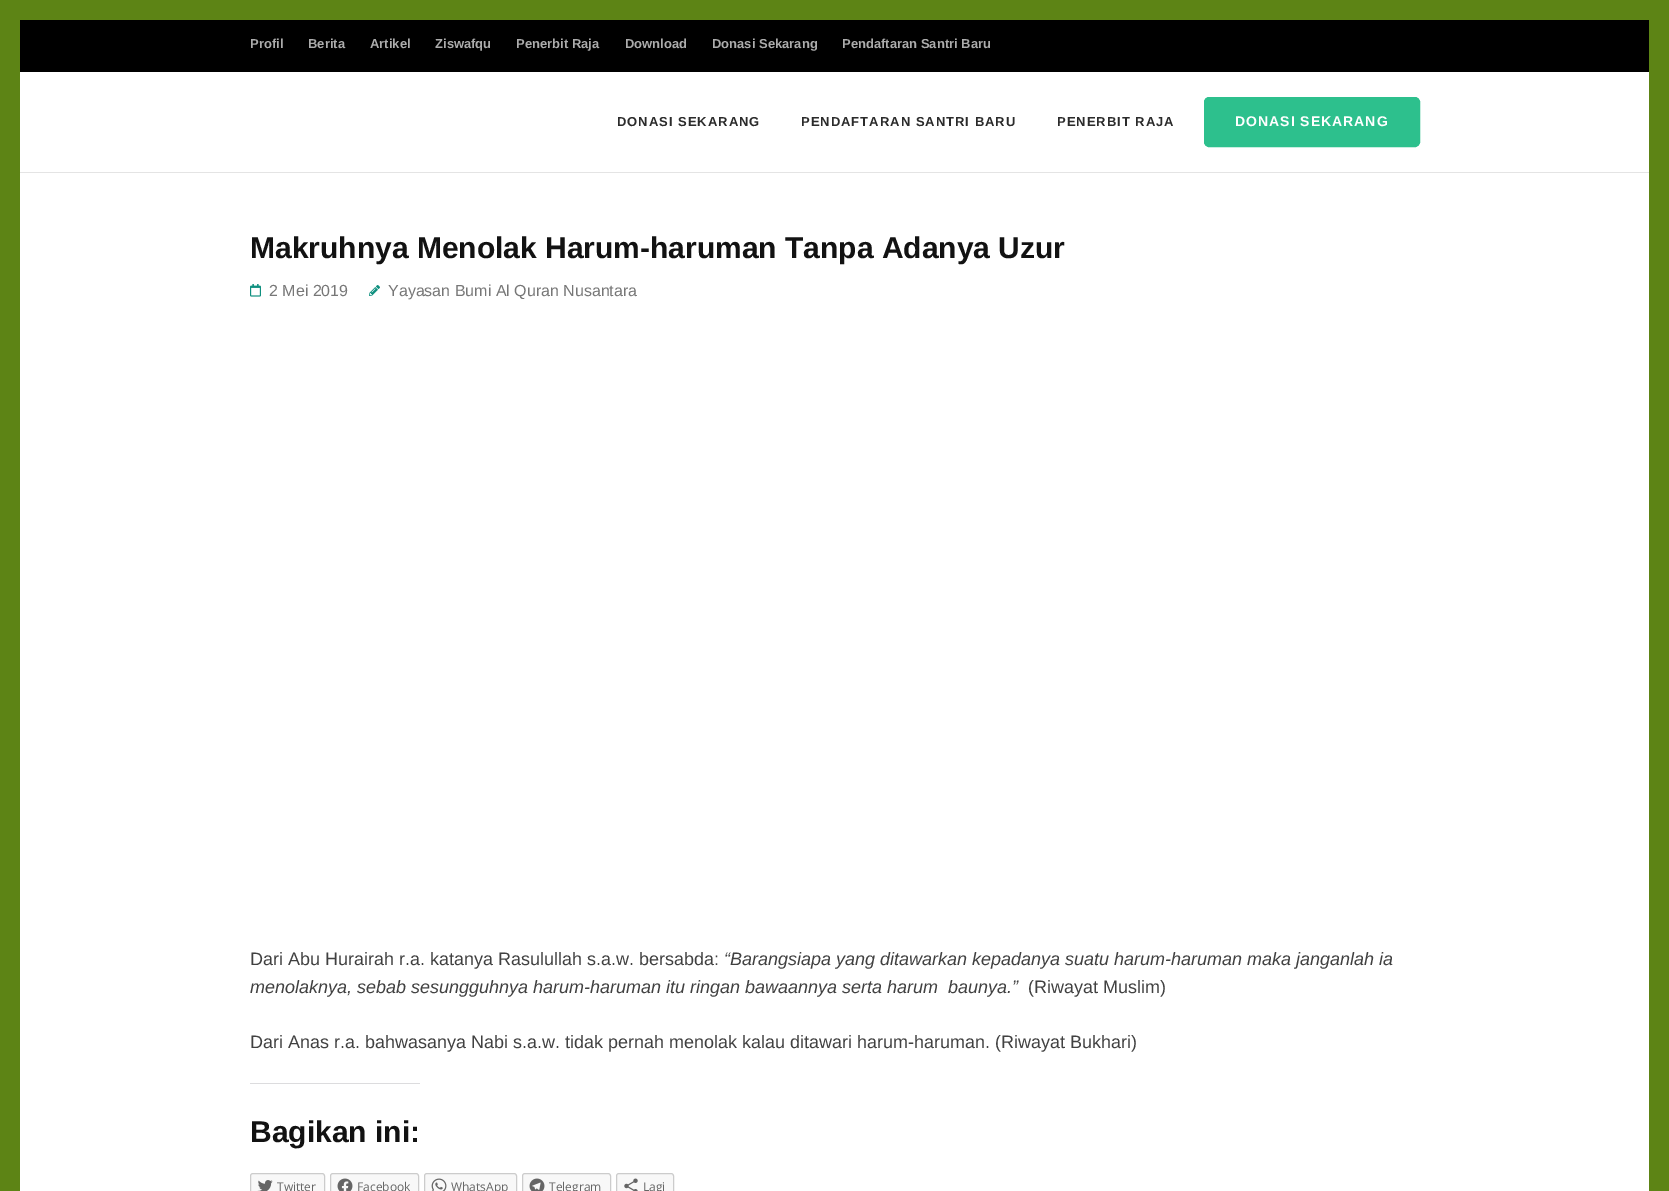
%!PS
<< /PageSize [1669 1191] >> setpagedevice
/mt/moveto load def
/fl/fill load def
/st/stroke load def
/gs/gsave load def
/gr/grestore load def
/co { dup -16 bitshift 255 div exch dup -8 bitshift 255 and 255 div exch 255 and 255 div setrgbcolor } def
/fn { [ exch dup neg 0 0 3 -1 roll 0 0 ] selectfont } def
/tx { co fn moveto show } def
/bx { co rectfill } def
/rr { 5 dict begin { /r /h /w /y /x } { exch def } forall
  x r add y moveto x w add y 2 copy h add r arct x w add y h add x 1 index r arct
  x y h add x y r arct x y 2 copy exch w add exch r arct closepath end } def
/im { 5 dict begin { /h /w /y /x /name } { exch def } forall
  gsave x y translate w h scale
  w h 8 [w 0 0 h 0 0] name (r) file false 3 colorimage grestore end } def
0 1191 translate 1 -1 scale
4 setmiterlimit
0 0 1669 1191 16#5D8415 bx
20 173 1629 1018 16#FFFFFF bx
20 172 1629 1 16#E4E4E4 bx
20 20 1629 52 16#000000 bx
20 72 1629 100 16#FFFFFF bx
16#2DC08D co
1204.5 97.5 215 49 4.5 rr gs fl gr
st
(media/1.raw) 250 284 11 13 im
(media/2.raw) 369 285 11 11 im
250 1083 170 1 16#DCDCDE bx
16#F8F8F8 co
250.5 1173.5 74 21 2.5 rr gs fl gr
16#CCCCCC co
st
(media/3.raw) 257 1180 16 11 im
16#F8F8F8 co
330.5 1173.5 88 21 2.5 rr gs fl gr
16#CCCCCC co
st
(media/4.raw) 337 1178 16 13 im
16#F8F8F8 co
424.5 1173.5 92 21 2.5 rr gs fl gr
16#CCCCCC co
st
(media/5.raw) 431 1178 16 13 im
16#F8F8F8 co
522.5 1173.5 88 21 2.5 rr gs fl gr
16#CCCCCC co
st
(media/6.raw) 529 1178 16 13 im
16#F8F8F8 co
616.5 1173.5 57 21 2.5 rr gs fl gr
16#CCCCCC co
st
(media/7.raw) 624 1178 14 13 im
(Profil) 250 48 /LiberationSans-Bold 13 16#ACACAC tx
(Berita) 308 48 /LiberationSans-Bold 13 16#ACACAC tx
(Artikel) 370 48 /LiberationSans-Bold 13 16#ACACAC tx
(Ziswafqu) 435 48 /LiberationSans-Bold 13 16#ACACAC tx
(Penerbit Raja) 516 48 /LiberationSans-Bold 13 16#ACACAC tx
(Download) 625 48 /LiberationSans-Bold 13 16#ACACAC tx
(Donasi Sekarang) 712 48 /LiberationSans-Bold 13 16#ACACAC tx
(Pendaftaran Santri Baru) 842 48 /LiberationSans-Bold 13 16#ACACAC tx
16#2B2B2B co
617 126 mt 1 0 (DONASI SEKARANG) ashow
801 126 mt 1 0 (PENDAFTARAN SANTRI BARU) ashow
1057 126 mt 1 0 (PENERBIT RAJA) ashow
/LiberationSans-Bold 14 fn
16#FFFFFF co
1235 126 mt 1 0 (DONASI SEKARANG) ashow
(Makruhnya Menolak Harum-haruman Tanpa Adanya Uzur) 250 258 /LiberationSans-Bold 30 16#121212 tx
(2 Mei 2019) 269 296 /LiberationSans-Regular 16 16#777777 tx
(Yayasan Bumi Al Quran Nusantara) 388 296 /LiberationSans-Regular 16 16#777777 tx
(Dari Abu Hurairah r.a. katanya Rasulullah s.a.w. bersabda:) 250 965 /LiberationSans-Regular 18 16#414141 tx
(“Barangsiapa yang ditawarkan kepadanya suatu harum-haruman maka janganlah ia) 724 965 /LiberationSans-Italic 18 16#414141 tx
(menolaknya, sebab sesungguhnya harum-haruman itu ringan bawaannya serta harum  baunya.”) 250 993 /LiberationSans-Italic 18 16#414141 tx
(\(Riwayat Muslim\)) 1028 993 /LiberationSans-Regular 18 16#414141 tx
(Dari Anas r.a. bahwasanya Nabi s.a.w. tidak pernah menolak kalau ditawari harum-haruman. \(Riwayat Bukhari\)) 250 1048 /LiberationSans-Regular 18 16#414141 tx
(Bagikan ini:) 250 1142 /LiberationSans-Bold 30 16#121212 tx
(Twitter) 277 1191 /OpenSans-Regular 12 16#656565 tx
(Facebook) 357 1191 /OpenSans-Regular 12 16#656565 tx
(WhatsApp) 451 1191 /OpenSans-Regular 12 16#656565 tx
(Telegram) 549 1191 /OpenSans-Regular 12 16#656565 tx
(Lagi) 643 1191 /OpenSans-Regular 12 16#656565 tx
showpage
